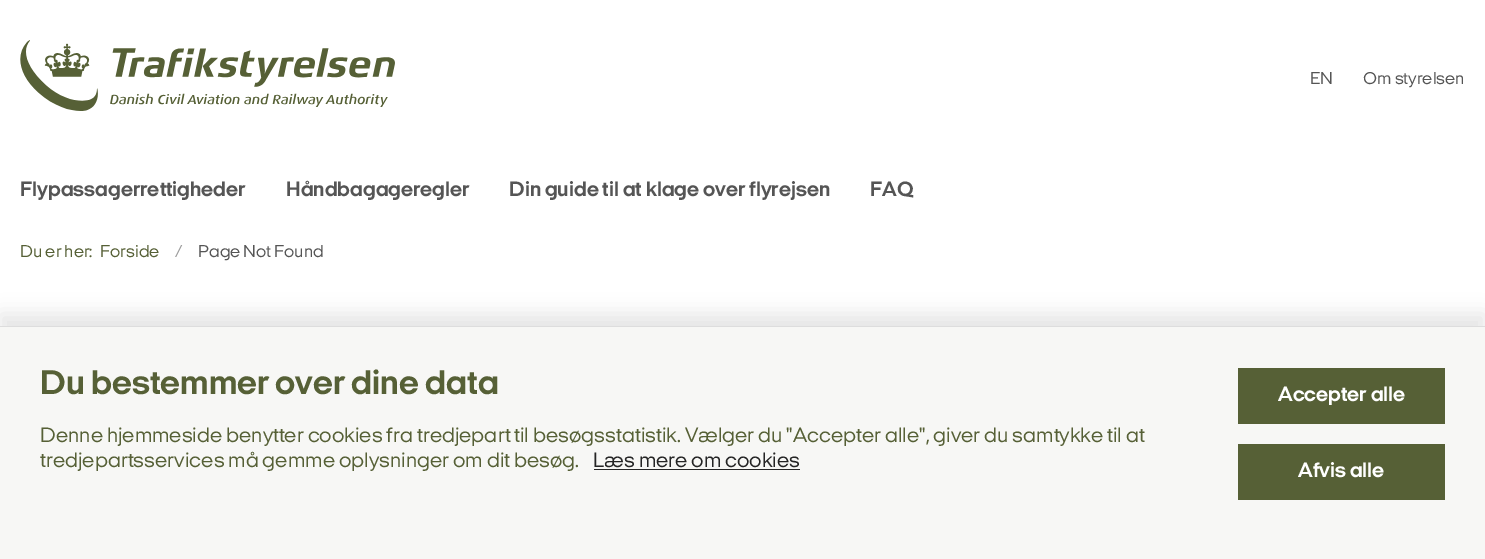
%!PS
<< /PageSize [1485 559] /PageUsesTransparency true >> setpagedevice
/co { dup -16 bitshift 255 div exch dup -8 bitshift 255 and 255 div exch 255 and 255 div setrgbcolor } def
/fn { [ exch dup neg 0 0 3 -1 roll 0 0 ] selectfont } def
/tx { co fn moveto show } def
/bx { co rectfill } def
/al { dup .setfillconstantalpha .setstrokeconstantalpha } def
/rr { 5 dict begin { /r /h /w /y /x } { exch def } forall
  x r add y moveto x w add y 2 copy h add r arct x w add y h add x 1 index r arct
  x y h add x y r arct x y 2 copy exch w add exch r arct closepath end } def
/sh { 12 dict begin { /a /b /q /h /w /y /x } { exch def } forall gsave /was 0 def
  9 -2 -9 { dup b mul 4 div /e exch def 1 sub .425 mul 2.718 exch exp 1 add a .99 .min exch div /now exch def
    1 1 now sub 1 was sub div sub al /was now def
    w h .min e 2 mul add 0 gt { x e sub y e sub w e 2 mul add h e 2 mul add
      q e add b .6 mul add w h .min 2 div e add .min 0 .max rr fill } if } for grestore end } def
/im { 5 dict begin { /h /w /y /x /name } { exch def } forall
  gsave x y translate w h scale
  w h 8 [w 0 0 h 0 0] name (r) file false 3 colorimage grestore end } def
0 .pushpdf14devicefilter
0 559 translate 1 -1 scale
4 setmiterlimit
0 0 1485 559 16#FFFFFF bx
(media/1.raw) 20 40 375 71 im
16#000000 co
0 314 1485 234 0 9.5 .1 sh
0 327 1485 232 16#F7F7F5 bx
0 326 1485 1 16#DDDDDD bx
594 469 206 1 16#252525 bx
1238 368 207 56 16#566036 bx
1238 444 207 56 16#566036 bx
(EN) 1310 84 /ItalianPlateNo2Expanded-Regular 17.5 16#555555 tx
(Om styrelsen) 1363 84 /ItalianPlateNo2Expanded-Regular 17.5 16#555555 tx
(Flypassagerrettigheder) 20 196 /ItalianPlateNo2Expanded-Bold 21.25 16#555555 tx
(Håndbagageregler) 286 196 /ItalianPlateNo2Expanded-Bold 21.25 16#555555 tx
(Din guide til at klage over flyrejsen) 509 196 /ItalianPlateNo2Expanded-Bold 21.25 16#555555 tx
(FAQ) 870 196 /ItalianPlateNo2Expanded-Bold 21.25 16#555555 tx
(Du er her:) 20 257 /ItalianPlateNo2Expanded-Regular 17.5 16#566036 tx
(Forside) 100 257 /ItalianPlateNo2Expanded-Regular 17.5 16#566036 tx
(/) 175 257 /ItalianPlateNo2Expanded-Regular 17.5 16#999999 tx
(Page Not Found) 198 257 /ItalianPlateNo2Expanded-Regular 17.5 16#555555 tx
(Du bestemmer over dine data) 40 394 /ItalianPlateNo2Expanded-Bold 35 16#566036 tx
(Denne hjemmeside benytter cookies fra tredjepart til besøgsstatistik. Vælger du "Accepter alle", giver du samtykke til at) 40 442 /ItalianPlateNo2Expanded-Regular 21.25 16#566036 tx
(tredjepartsservices må gemme oplysninger om dit besøg.) 40 467 /ItalianPlateNo2Expanded-Regular 21.25 16#566036 tx
(Læs mere om cookies) 593 467 /ItalianPlateNo2Expanded-Regular 21.25 16#252525 tx
(Accepter alle) 1278 401 /ItalianPlateNo2Expanded-Bold 21.25 16#FFFFFF tx
(Afvis alle) 1298 477 /ItalianPlateNo2Expanded-Bold 21.25 16#FFFFFF tx
.poppdf14devicefilter showpage
